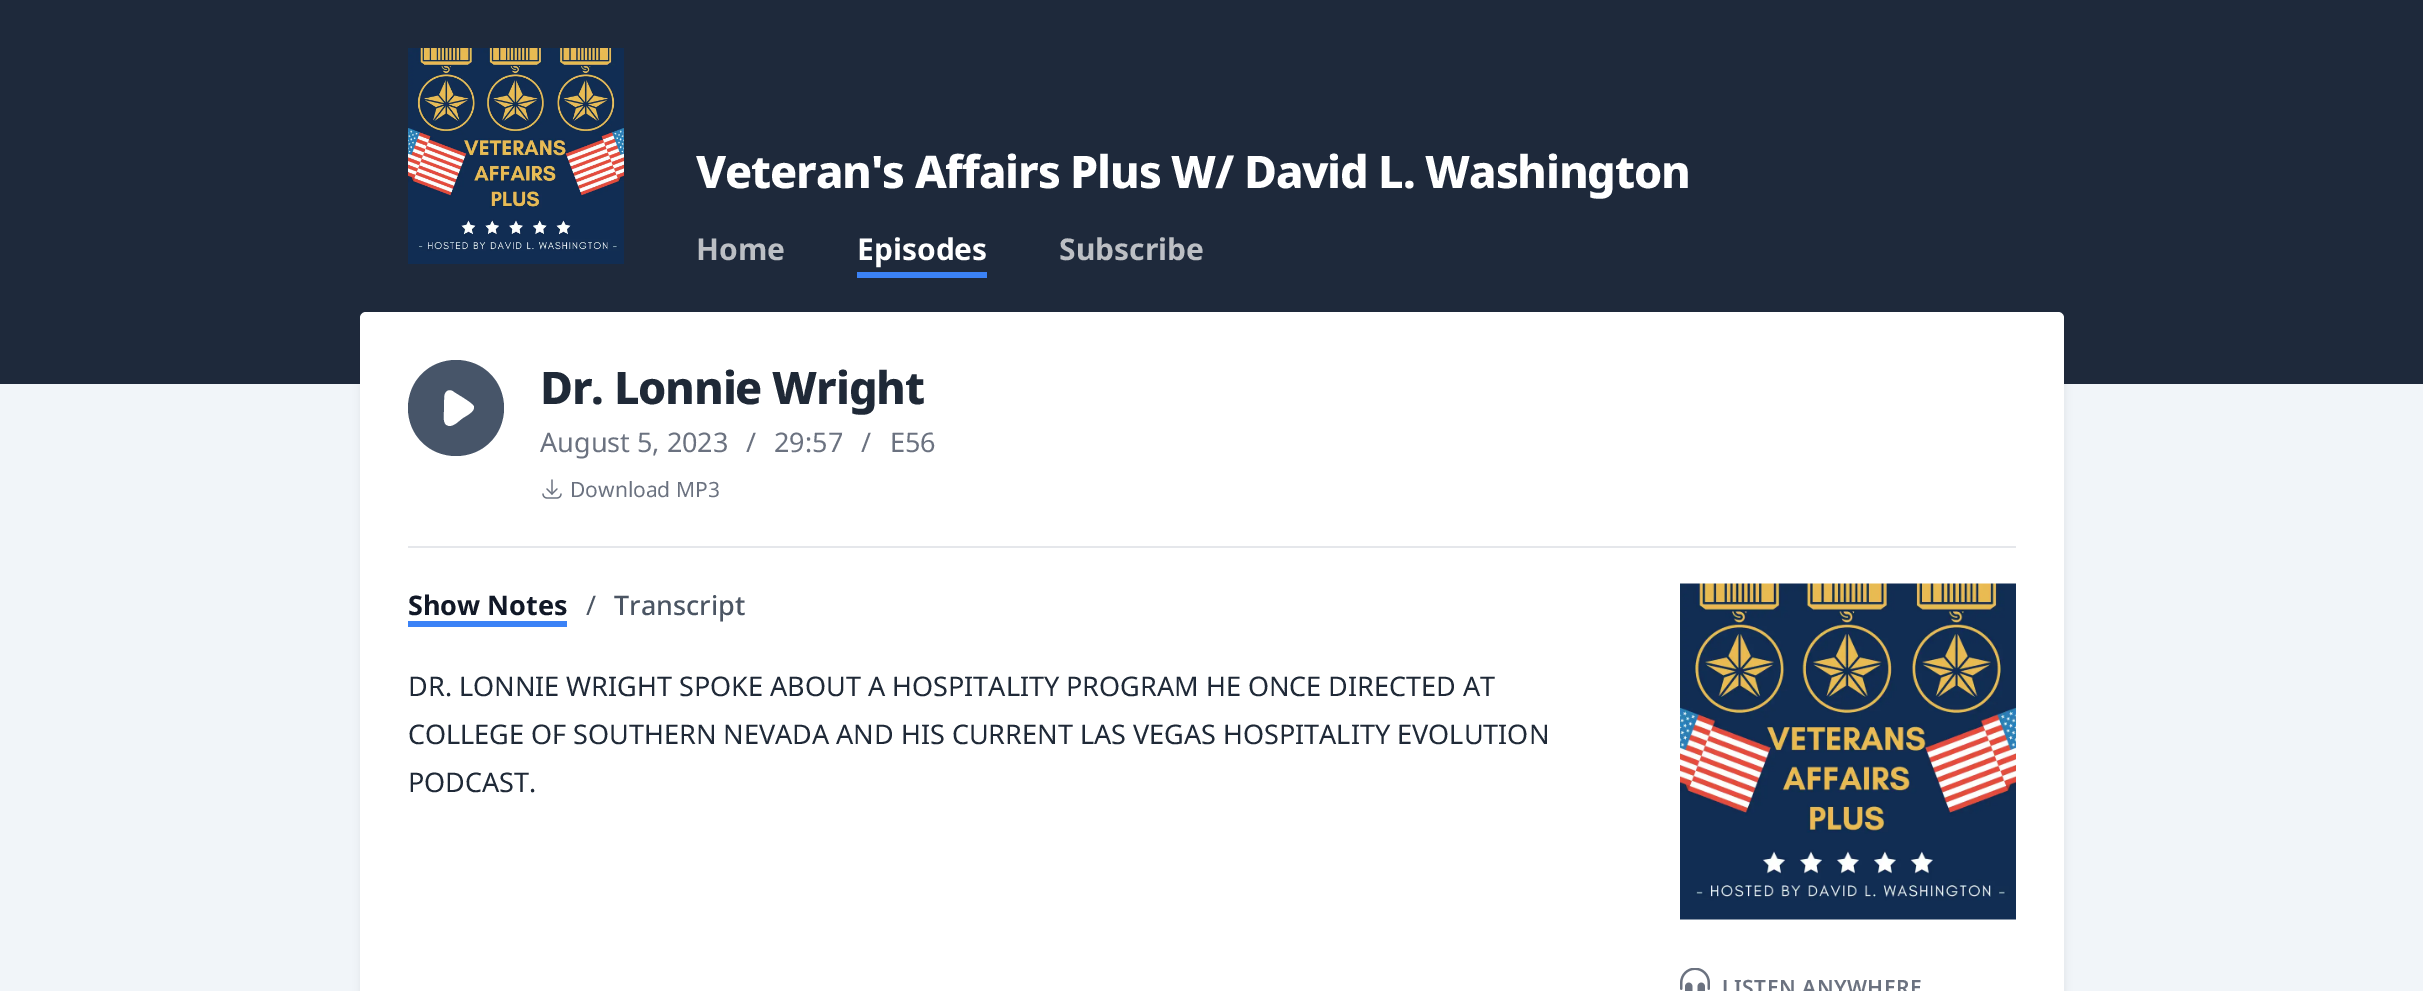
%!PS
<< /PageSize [2423 991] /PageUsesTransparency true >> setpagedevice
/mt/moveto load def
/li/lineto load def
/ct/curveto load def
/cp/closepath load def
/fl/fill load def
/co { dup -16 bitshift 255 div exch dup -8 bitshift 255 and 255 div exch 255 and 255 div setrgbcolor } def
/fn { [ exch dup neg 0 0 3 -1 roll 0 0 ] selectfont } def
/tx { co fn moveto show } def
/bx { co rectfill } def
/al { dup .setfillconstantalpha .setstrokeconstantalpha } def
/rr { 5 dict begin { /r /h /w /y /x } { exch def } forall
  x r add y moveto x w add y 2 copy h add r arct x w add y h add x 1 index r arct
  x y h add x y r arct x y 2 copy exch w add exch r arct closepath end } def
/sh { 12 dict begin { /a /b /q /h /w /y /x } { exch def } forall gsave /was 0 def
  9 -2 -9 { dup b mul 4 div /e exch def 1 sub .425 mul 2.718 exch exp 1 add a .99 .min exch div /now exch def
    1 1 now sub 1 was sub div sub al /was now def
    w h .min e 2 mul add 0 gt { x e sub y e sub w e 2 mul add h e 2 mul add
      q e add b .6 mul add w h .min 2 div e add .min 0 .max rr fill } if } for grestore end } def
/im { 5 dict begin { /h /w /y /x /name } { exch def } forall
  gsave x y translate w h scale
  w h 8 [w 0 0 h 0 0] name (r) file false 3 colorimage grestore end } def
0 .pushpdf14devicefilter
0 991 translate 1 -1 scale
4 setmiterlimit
0 0 2423 991 16#F1F5F9 bx
0 0 2423 384 16#1E293B bx
(media/1.raw) 408 48 216 216 im
857 272 130 6 16#3B82F6 bx
16#000000 co
362 320 1701 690 5 4.5 .1 sh
16#FFFFFF co
360 312 1704 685 6 rr fl
408 546 1608 2 16#E5E7EB bx
16#475569 co
456 456 mt 483 456 504 435 504 408 ct 504 381 483 360 456 360 ct 429 360 408 381 408 408 ct 408 435 429 456 456 456 ct cp 453 391 mt 452 390 450 390 449 390 ct 444 391 444 396 444 400 ct 444 408 li 444 412 442 422 446 425 ct 452 429 458 422 462 419 ct 466 416 476 412 474 406 ct 472 402 457 394 453 391 ct cp eofill
(media/2.raw) 542 479 20 20 im
408 621 159 6 16#3B82F6 bx
(media/3.raw) 1680 583 336 337 im
(media/4.raw) 1680 968 30 23 im
/NotoSans-ExtraBold 45 fn
16#FFFFFF co
696 188 mt -1.1 0 (Veteran's Affairs Plus W/ David L. Washington) ashow
(Home) 696 260 /NotoSans-Bold 30 16#BCBFC4 tx
(Episodes) 857 260 /NotoSans-Bold 30 16#FFFFFF tx
(Subscribe) 1059 260 /NotoSans-Bold 30 16#BCBFC4 tx
/NotoSans-ExtraBold 45 fn
16#1F2937 co
540 404 mt -1.1 0 (Dr. Lonnie Wright) ashow
(August 5, 2023) 540 452 /NotoSans-Regular 27 16#6B7280 tx
(/) 746 452 /NotoSans-Regular 27 16#6B7280 tx
(29:57) 774 452 /NotoSans-Regular 27 16#6B7280 tx
(/) 861 452 /NotoSans-Regular 27 16#6B7280 tx
(E56) 890 452 /NotoSans-Regular 27 16#6B7280 tx
(Download MP3) 570 497 /NotoSans-Regular 21 16#6B7280 tx
(Show Notes) 408 615 /NotoSans-Bold 27 16#111827 tx
(/) 586 615 /NotoSans-Regular 27 16#4B5563 tx
(Transcript) 614 615 /NotoSans-Medium 27 16#4B5563 tx
(DR. LONNIE WRIGHT SPOKE ABOUT A HOSPITALITY PROGRAM HE ONCE DIRECTED AT) 408 696 /NotoSans-Regular 27 16#1F2937 tx
(COLLEGE OF SOUTHERN NEVADA AND HIS CURRENT LAS VEGAS HOSPITALITY EVOLUTION) 408 744 /NotoSans-Regular 27 16#1F2937 tx
(PODCAST.) 408 792 /NotoSans-Regular 27 16#1F2937 tx
/NotoSans-SemiBold 21 fn
16#6B7280 co
1722 995 mt .5 0 (LISTEN ANYWHERE) ashow
.poppdf14devicefilter showpage
